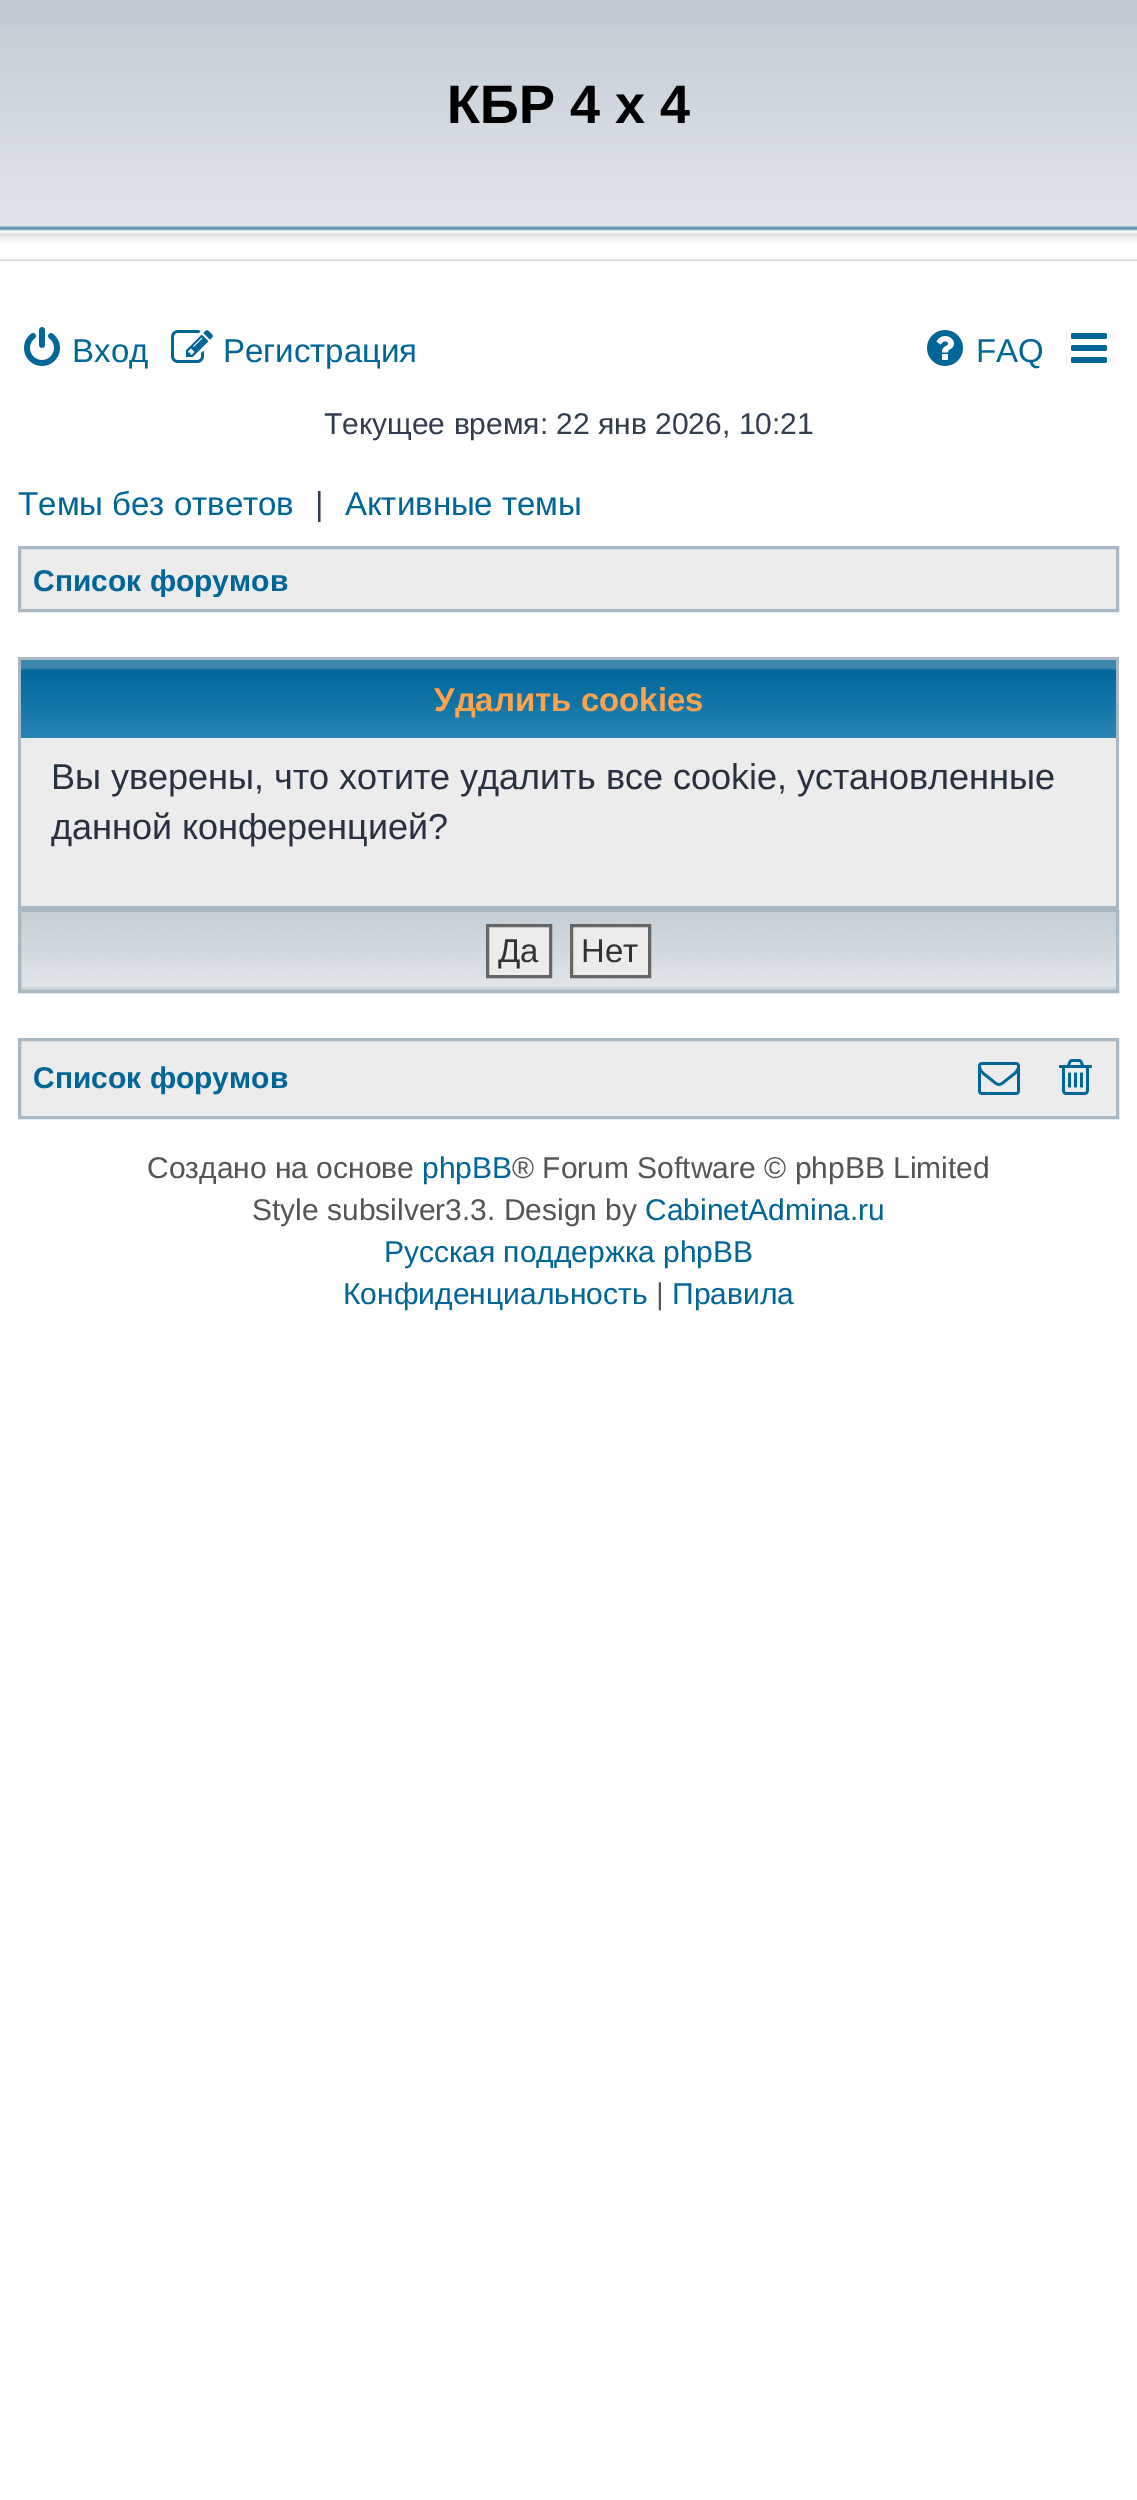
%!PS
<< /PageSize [1137 2500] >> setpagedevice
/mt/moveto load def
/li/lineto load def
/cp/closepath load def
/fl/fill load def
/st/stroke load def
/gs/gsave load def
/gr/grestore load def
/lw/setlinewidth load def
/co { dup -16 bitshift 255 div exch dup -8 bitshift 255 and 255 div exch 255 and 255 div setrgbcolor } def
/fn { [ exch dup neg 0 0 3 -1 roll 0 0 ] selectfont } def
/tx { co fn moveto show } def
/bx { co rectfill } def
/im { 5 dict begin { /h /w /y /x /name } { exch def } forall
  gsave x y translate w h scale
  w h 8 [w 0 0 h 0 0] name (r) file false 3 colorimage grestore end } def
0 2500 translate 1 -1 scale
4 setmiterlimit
0 0 1137 2500 16#FFFFFF bx
0 0 1137 27 16#C1CAD2 bx
(media/1.raw) 0 27 1137 234 im
(media/2.raw) 24 327 36 39 im
(media/3.raw) 171 330 42 33 im
(media/4.raw) 927 330 36 36 im
(media/5.raw) 1071 333 36 30 im
16#ECECEC co
19.5 547.5 mt 1117.5 547.5 li 1117.5 610.5 li 19.5 610.5 li cp gs fl gr
16#A9B8C2 co
3 lw
st
(media/6.raw) 21 660 1095 78 im
18 657 1101 3 16#A9B8C2 bx
1116 657 3 252 16#A9B8C2 bx
18 657 3 81 16#A9B8C2 bx
21 738 1095 168 16#ECECEC bx
18 906 1101 3 16#A9B8C2 bx
18 738 3 171 16#A9B8C2 bx
21 988 1095 2 16#C7D0D7 bx
(media/7.raw) 21 912 1095 76 im
16#A9B8C2 co
19.5 910.5 1098 81 rectstroke
16#ECECEC co
487.5 925.5 mt 550.5 925.5 li 550.5 976.5 li 487.5 976.5 li cp gs fl gr
16#666666 co
st
16#ECECEC co
571.5 925.5 mt 649.5 925.5 li 649.5 976.5 li 571.5 976.5 li cp gs fl gr
16#666666 co
st
16#ECECEC co
19.5 1039.5 mt 1117.5 1039.5 li 1117.5 1117.5 li 19.5 1117.5 li cp gs fl gr
16#A9B8C2 co
st
(media/8.raw) 978 1062 42 33 im
(media/9.raw) 1059 1059 33 36 im
(КБР 4 x 4) 447 123 /LiberationSans-Bold 54 16#000000 tx
(Вход) 72 362 /LiberationSans-Regular 33 16#006597 tx
(Регистрация) 223 362 /LiberationSans-Regular 33 16#006597 tx
(FAQ) 976 362 /LiberationSans-Regular 33 16#006597 tx
(Текущее время: 22 янв 2026, 10:21) 324 434 /LiberationSans-Regular 30 16#323D4F tx
(Темы без ответов) 18 515 /LiberationSans-Regular 33 16#006597 tx
(|) 315 515 /LiberationSans-Regular 33 16#323D4F tx
(Активные темы) 345 515 /LiberationSans-Regular 33 16#006597 tx
gs
33 564 255 33 rectclip
(Список форумов) 33 591 /LiberationSans-Bold 30 16#006597 tx
gr
(Удалить cookies) 434 711 /LiberationSans-Bold 33 16#FFA34F tx
(Вы уверены, что хотите удалить все cookie, установленные) 51 789 /LiberationSans-Regular 36 16#28313F tx
(данной конференцией?) 51 839 /LiberationSans-Regular 36 16#28313F tx
(Да) 498 962 /LiberationSans-Regular 33 16#333333 tx
(Нет) 581 962 /LiberationSans-Regular 33 16#333333 tx
(Список форумов) 33 1088 /LiberationSans-Bold 30 16#006597 tx
(Создано на основе) 147 1178 /LiberationSans-Regular 30 16#555555 tx
(phpBB) 422 1178 /LiberationSans-Regular 30 16#006597 tx
(® Forum Software © phpBB Limited) 512 1178 /LiberationSans-Regular 30 16#555555 tx
(Style subsilver3.3. Design by) 252 1220 /LiberationSans-Regular 30 16#555555 tx
(CabinetAdmina.ru) 645 1220 /LiberationSans-Regular 30 16#006597 tx
(Русская поддержка phpBB) 384 1262 /LiberationSans-Regular 30 16#006597 tx
(Конфиденциальность) 343 1304 /LiberationSans-Regular 30 16#006597 tx
(|) 656 1304 /LiberationSans-Regular 30 16#555555 tx
(Правила) 672 1304 /LiberationSans-Regular 30 16#006597 tx
showpage
